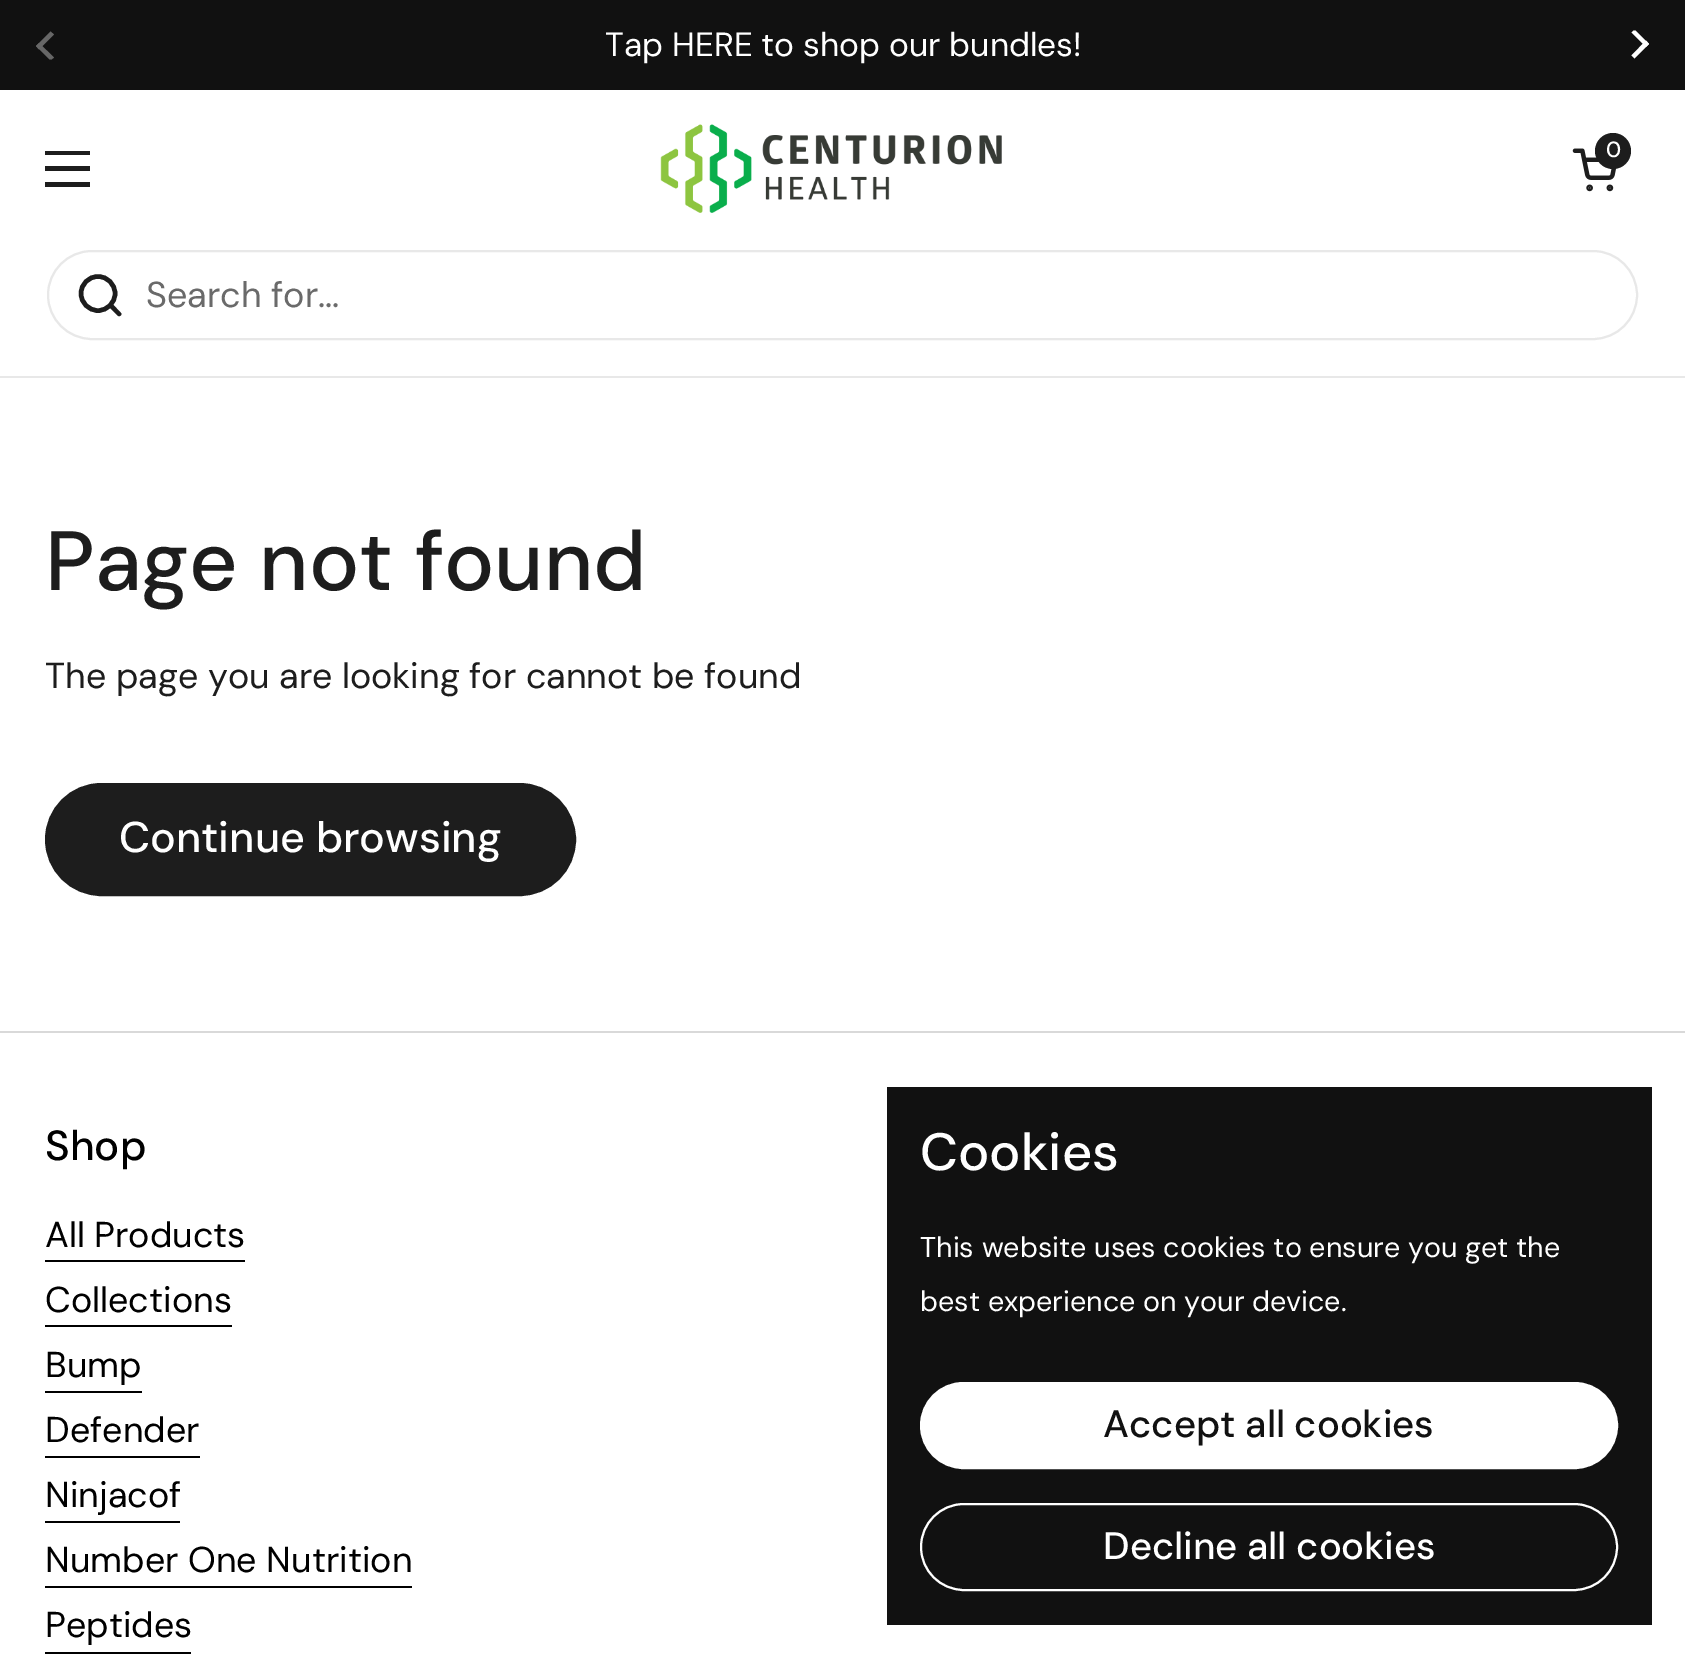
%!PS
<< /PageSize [1685 1658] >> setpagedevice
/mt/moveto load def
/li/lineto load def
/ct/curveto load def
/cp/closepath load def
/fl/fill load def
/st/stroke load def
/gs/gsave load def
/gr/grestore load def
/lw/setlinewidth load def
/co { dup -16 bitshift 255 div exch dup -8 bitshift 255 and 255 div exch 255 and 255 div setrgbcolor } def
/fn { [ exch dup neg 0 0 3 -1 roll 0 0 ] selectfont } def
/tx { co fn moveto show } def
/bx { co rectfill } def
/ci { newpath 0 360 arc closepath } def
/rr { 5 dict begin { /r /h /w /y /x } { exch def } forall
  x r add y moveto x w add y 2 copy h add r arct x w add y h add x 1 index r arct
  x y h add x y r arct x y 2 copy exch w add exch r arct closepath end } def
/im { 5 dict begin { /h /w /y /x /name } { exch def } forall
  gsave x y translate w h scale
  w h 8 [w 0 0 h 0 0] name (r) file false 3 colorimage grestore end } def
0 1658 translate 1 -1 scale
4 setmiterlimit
0 0 1685 1658 16#FFFFFF bx
0 0 1685 90 16#111111 bx
16#676767 co
54 34.5 mt 39 49.5 li 36 46 li 50.5 31.5 li cp fl
49.5 59.5 mt 36 46 li 39 43 li 54 57.5 li 51.5 59.5 li cp fl
16#FFFFFF co
1631.5 55.5 mt 1646 40.5 li 1649 44 li 1634.5 58.5 li cp fl
1635.5 30.5 mt 1649 44 li 1646 47 li 1631.5 32.5 li 1633.5 30.5 li cp fl
45 151 45 4 16#1D1D1D bx
45 166 45 5 16#1D1D1D bx
45 182 45 5 16#1D1D1D bx
(media/1.raw) 660 124 342 89 im
(media/2.raw) 1572 148 45 44 im
1613 151 18 ci fl
0 376 1685 2 16#E8E8E8 bx
2 lw
48 251 1589 88 44 rr st
16#1D1D1D co
4.5 lw
98 293.5 17 ci st
113 304.5 mt 111 303 li 108 306 li 109.5 307.5 li cp 117.5 315.5 mt 119.5 317.5 123 314.5 120.5 312.5 ct cp 109.5 307.5 mt 117.5 315.5 li 120.5 312.5 li 113 304.5 li cp fl
46 784 529 111 55.5 rr gs fl gr
2 lw
st
0 1031 1685 2 16#D9D9D9 bx
45 1260 200 2 16#000000 bx
45 1325 187 2 16#000000 bx
45 1391 97 2 16#000000 bx
45 1456 155 2 16#000000 bx
45 1521 135 2 16#000000 bx
45 1586 367 2 16#000000 bx
45 1652 146 2 16#000000 bx
887 1087 765 538 16#111111 bx
16#FFFFFF co
921 1383 696 85 42.5 rr gs fl gr
st
921 1504 696 86 43 rr st
(Tap HERE to shop our bundles!) 605 56 /DMSans-Regular 33.5 16#FFFFFF tx
(0) 1606 157 /DMSans-Medium 22 16#FFFFFF tx
(Search for...) 146 307 /DMSans-Regular 36 16#6A6A6A tx
(Page not found) 45 590 /DMSans-Medium 84 16#1D1D1D tx
(The page you are looking for cannot be found) 45 688 /DMSans-Regular 35.9 16#1D1D1D tx
(Continue browsing) 119 852 /DMSans-Medium 43 16#FFFFFF tx
(Shop) 45 1160 /DMSans-Medium 42 16#000000 tx
(All Products) 45 1247 /DMSans-Regular 35.9 16#000000 tx
(Collections) 45 1312 /DMSans-Regular 35.9 16#000000 tx
(Bump) 45 1377 /DMSans-Regular 35.9 16#000000 tx
(Defender) 45 1442 /DMSans-Regular 35.9 16#000000 tx
(Ninjacof) 45 1507 /DMSans-Regular 35.9 16#000000 tx
(Number One Nutrition) 45 1572 /DMSans-Regular 35.9 16#000000 tx
(Peptides) 45 1637 /DMSans-Regular 35.9 16#000000 tx
(Cookies) 920 1170 /DMSans-Medium 52.5 16#FFFFFF tx
(This website uses cookies to ensure you get the) 920 1257 /DMSans-Regular 28.7 16#FFFFFF tx
(best experience on your device.) 920 1311 /DMSans-Regular 28.7 16#FFFFFF tx
(Accept all cookies) 1103 1437 /DMSans-Medium 38.25 16#111111 tx
(Decline all cookies) 1103 1559 /DMSans-Medium 38.25 16#FFFFFF tx
showpage
